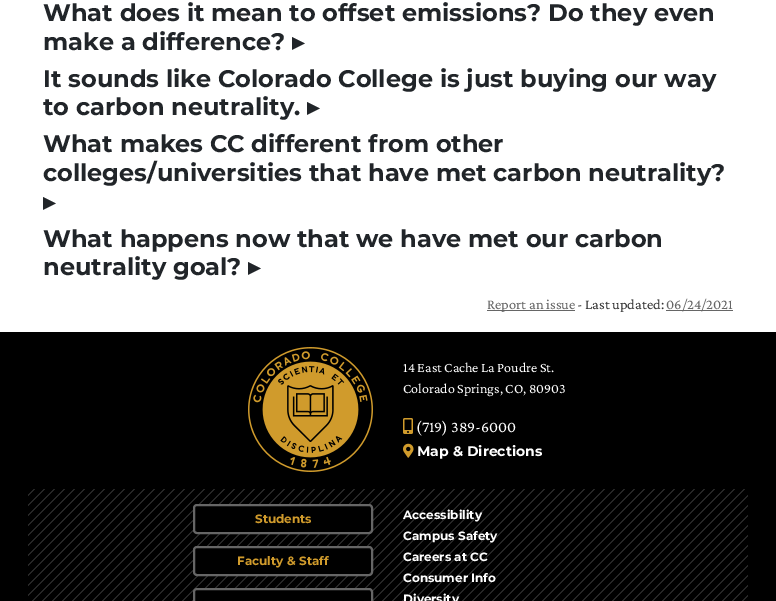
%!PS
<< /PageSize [776 601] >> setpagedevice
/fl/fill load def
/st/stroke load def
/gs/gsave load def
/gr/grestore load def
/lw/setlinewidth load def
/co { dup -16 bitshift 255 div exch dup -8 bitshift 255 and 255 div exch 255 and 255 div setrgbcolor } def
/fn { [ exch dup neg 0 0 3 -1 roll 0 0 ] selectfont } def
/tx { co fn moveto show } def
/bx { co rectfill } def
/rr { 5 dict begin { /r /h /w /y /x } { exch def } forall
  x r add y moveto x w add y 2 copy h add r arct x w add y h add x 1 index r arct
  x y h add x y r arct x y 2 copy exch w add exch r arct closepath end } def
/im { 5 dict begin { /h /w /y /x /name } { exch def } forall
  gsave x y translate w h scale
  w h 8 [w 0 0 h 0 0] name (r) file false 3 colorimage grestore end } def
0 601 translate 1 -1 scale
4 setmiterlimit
0 0 776 601 16#FFFFFF bx
487 310 88 1 16#666666 bx
666 310 67 1 16#666666 bx
0 332 776 269 16#000000 bx
(media/1.raw) 248 347 125 125 im
(media/2.raw) 403 418 10 16 im
(media/3.raw) 403 443 11 15 im
(media/4.raw) 28 489 720 112 im
194 505 178 28 3 rr gs fl gr
16#666666 co
2 lw
st
16#000000 co
194 547 178 28 3 rr gs fl gr
16#666666 co
st
16#000000 co
194 589 178 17 3 rr gs fl gr
16#666666 co
st
(What does it mean to offset emissions? Do they even) 43 21 /Montserrat-Bold 24 16#212529 tx
(make a difference?) 43 50 /Montserrat-Bold 24 16#212529 tx
(▸) 292 50 /DejaVuSans-Bold 24 16#212529 tx
(It sounds like Colorado College is just buying our way) 43 87 /Montserrat-Bold 24 16#212529 tx
(to carbon neutrality.) 43 115 /Montserrat-Bold 24 16#212529 tx
(▸) 307 115 /DejaVuSans-Bold 24 16#212529 tx
(What makes CC different from other) 43 152 /Montserrat-Bold 24 16#212529 tx
(colleges/universities that have met carbon neutrality?) 43 181 /Montserrat-Bold 24 16#212529 tx
(▸) 43 210 /DejaVuSans-Bold 24 16#212529 tx
(What happens now that we have met our carbon) 43 247 /Montserrat-Bold 24 16#212529 tx
(neutrality goal?) 43 275 /Montserrat-Bold 24 16#212529 tx
(▸) 248 275 /DejaVuSans-Bold 24 16#212529 tx
(Report an issue) 487 309 /CrimsonPro-Regular 14.5 16#666666 tx
(- Last updated:) 577 309 /CrimsonPro-Regular 14.5 16#333333 tx
(06/24/2021) 666 309 /CrimsonPro-Regular 14.5 16#666666 tx
(14 East Cache La Poudre St.) 403 372 /CrimsonPro-Regular 14 16#FFFFFF tx
(Colorado Springs, CO, 80903) 403 393 /CrimsonPro-Regular 14 16#FFFFFF tx
(\(719\) 389-6000) 416 432 /CrimsonPro-Regular 16 16#FFFFFF tx
(Map & Directions) 417 456 /Montserrat-Bold 14 16#FFFFFF tx
(Students) 255 523 /Montserrat-Bold 12 16#D09B2C tx
(Faculty & Staff) 237 565 /Montserrat-Bold 12 16#D09B2C tx
(Accessibility) 403 519 /Montserrat-Bold 12 16#FFFFFF tx
(Campus Safety) 403 540 /Montserrat-Bold 12 16#FFFFFF tx
(Careers at CC) 403 561 /Montserrat-Bold 12 16#FFFFFF tx
(Consumer Info) 403 582 /Montserrat-Bold 12 16#FFFFFF tx
(Diversity) 403 603 /Montserrat-Bold 12 16#FFFFFF tx
showpage
